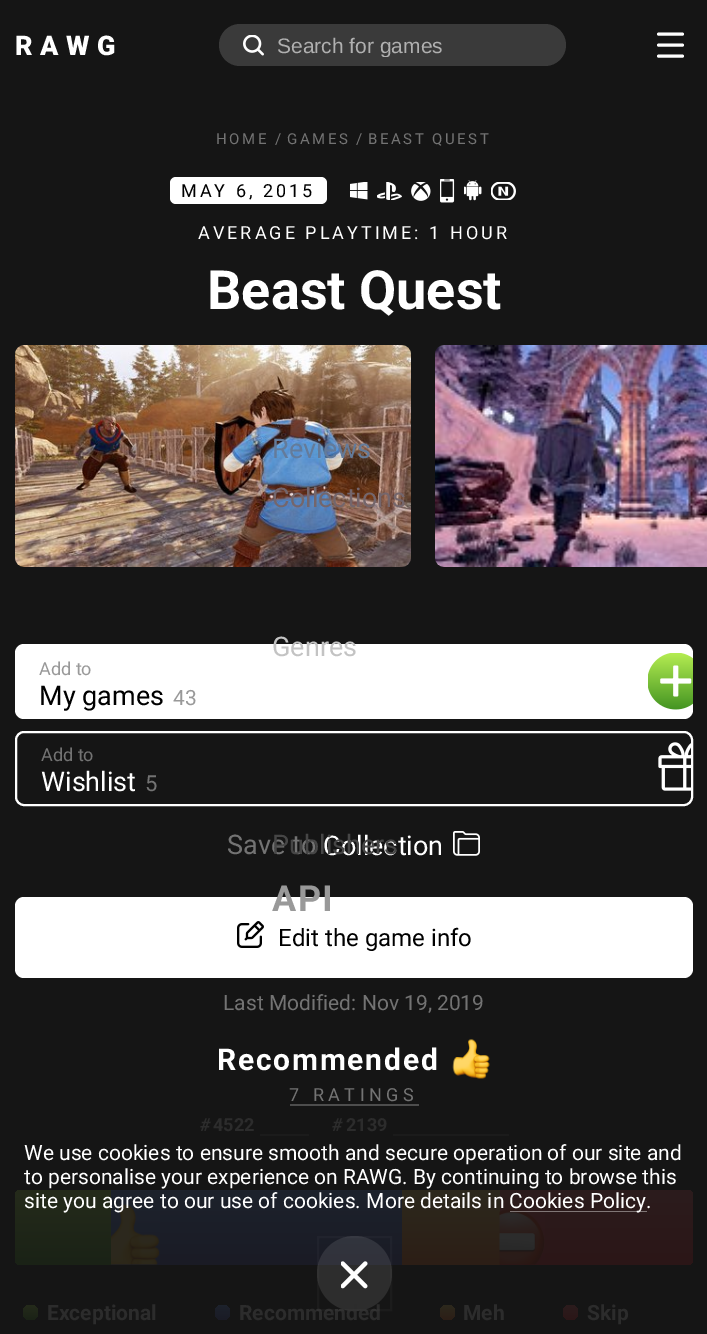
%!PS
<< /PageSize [707 1334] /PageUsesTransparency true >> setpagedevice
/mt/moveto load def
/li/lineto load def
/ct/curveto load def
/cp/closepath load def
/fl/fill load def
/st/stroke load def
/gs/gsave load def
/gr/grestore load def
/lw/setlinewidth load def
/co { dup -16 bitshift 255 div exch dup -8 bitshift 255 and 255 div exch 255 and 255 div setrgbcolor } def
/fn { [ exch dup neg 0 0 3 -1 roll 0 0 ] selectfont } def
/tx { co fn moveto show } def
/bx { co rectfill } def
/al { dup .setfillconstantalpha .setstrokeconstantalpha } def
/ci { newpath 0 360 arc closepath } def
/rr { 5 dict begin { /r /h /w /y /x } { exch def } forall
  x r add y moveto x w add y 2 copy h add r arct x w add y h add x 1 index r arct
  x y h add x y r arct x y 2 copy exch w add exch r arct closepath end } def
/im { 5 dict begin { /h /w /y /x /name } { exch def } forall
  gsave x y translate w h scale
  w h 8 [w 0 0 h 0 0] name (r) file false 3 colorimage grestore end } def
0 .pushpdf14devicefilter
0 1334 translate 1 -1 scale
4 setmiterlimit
0 0 707 1334 16#151515 bx
16#3A3A3A co
219 24 347 42 21 rr fl
(media/1.raw) 243 35 21 21 im
16#FFFFFF co
3 lw
1 setlinecap
658.5 34 mt 682.5 34 li 658.5 45 mt 682.5 45 li 658.5 56 mt 682.5 56 li st
170 177 157 27 6 rr fl
(media/2.raw) 350 182 18 18 im
(media/3.raw) 377 182 25 18 im
(media/4.raw) 411 182 20 19 im
(media/5.raw) 440 179 15 24 im
(media/6.raw) 464 180 18 21 im
(media/7.raw) 491 182 25 18 im
(media/8.raw) 15 345 396 222 im
16#212121 co
444 345 mt 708 345 li 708 567 li 444 567 li 439 567 435 563 435 558 ct 435 354 li 435 349 439 345 444 345 ct cp fl
(media/9.raw) 435 345 272 222 im
16#FFFFFF co
15 644 678 75 9 rr fl
(media/10.raw) 648 653 45 57 im
2 lw
0 setlinecap
16 732 676 73 8 rr st
(media/11.raw) 658 742 33 49 im
(media/12.raw) 453 831 27 25 im
15 897 678 81 9 rr fl
(media/13.raw) 237 921 27 27 im
(media/14.raw) 452 1039 38 40 im
290 1104 129 2 16#4D4D4D bx
260 1134 49 2 16#1B1B1B bx
393 1134 116 2 16#1B1B1B bx
gs 21 1190 mt 111 1190 li 111 1265 li 21 1265 li 17.5 1265 15 1262.5 15 1259 ct 15 1196 li 15 1192.5 17.5 1190 21 1190 ct cp clip newpath
<< /ShadingType 2 /ColorSpace /DeviceRGB /Coords [63 1190 63 1265] /Extend [true true] /Function << /FunctionType 2 /Domain [0 1] /C0 [.145 .169 .106] /C1 [.102 .133 .086] /N 1 >> >> shfill gr
gs 111 1190 mt 402 1190 li 402 1265 li 111 1265 li cp clip newpath
<< /ShadingType 2 /ColorSpace /DeviceRGB /Coords [257 1265 257 1190] /Extend [true true] /Function << /FunctionType 2 /Domain [0 1] /C0 [.102 .106 .145] /C1 [.114 .133 .173] /N 1 >> >> shfill gr
(media/15.raw) 111 1204 49 61 im
gs 402 1190 mt 500 1190 li 500 1265 li 402 1265 li cp clip newpath
<< /ShadingType 2 /ColorSpace /DeviceRGB /Coords [451 1190 451 1265] /Extend [true true] /Function << /FunctionType 2 /Domain [0 1] /C0 [.173 .161 .114] /C1 [.173 .118 .086] /N 1 >> >> shfill gr
gs 500 1190 mt 687 1190 li 690.5 1190 693 1192.5 693 1196 ct 693 1259 li 693 1262.5 690.5 1265 687 1265 ct 500 1265 li cp clip newpath
<< /ShadingType 2 /ColorSpace /DeviceRGB /Coords [596 1190 596 1265] /Extend [true true] /Function << /FunctionType 2 /Domain [0 1] /C0 [.173 .11 .114] /C1 [.169 .086 .09] /N 1 >> >> shfill gr
(media/16.raw) 499 1209 46 56 im
gs 30.5 1312.5 7.5 ci clip newpath
<< /ShadingType 2 /ColorSpace /DeviceRGB /Coords [30 1305 30 1320] /Extend [true true] /Function << /FunctionType 2 /Domain [0 1] /C0 [.145 .169 .106] /C1 [.102 .133 .086] /N 1 >> >> shfill gr
gs 222.5 1312.5 7.5 ci clip newpath
<< /ShadingType 2 /ColorSpace /DeviceRGB /Coords [222 1320 222 1305] /Extend [true true] /Function << /FunctionType 2 /Domain [0 1] /C0 [.102 .106 .145] /C1 [.114 .133 .173] /N 1 >> >> shfill gr
gs 447.5 1312.5 7.5 ci clip newpath
<< /ShadingType 2 /ColorSpace /DeviceRGB /Coords [447 1305 447 1320] /Extend [true true] /Function << /FunctionType 2 /Domain [0 1] /C0 [.173 .161 .114] /C1 [.173 .118 .086] /N 1 >> >> shfill gr
gs 570.5 1312.5 7.5 ci clip newpath
<< /ShadingType 2 /ColorSpace /DeviceRGB /Coords [570 1305 570 1320] /Extend [true true] /Function << /FunctionType 2 /Domain [0 1] /C0 [.173 .11 .114] /C1 [.169 .086 .09] /N 1 >> >> shfill gr
0.4 al
510 1211 137 1 16#FFFFFF bx
0.1 al
354.5 1273.5 37.5 ci fl
/Roboto-Black 27 fn
1 al
15 55 mt 7.5 0 (RAWG) ashow
gs
276 33 272 24 rectclip
(Search for games) 277 53 /LiberationSans-Regular 21 16#B0B0B0 tx
gr
(Reviews) 272 458 /Roboto-Regular 27 16#647B9A tx
(Collections) 272 507 /Roboto-Regular 27 16#74666C tx
(Genres) 272 656 /Roboto-Regular 27 16#C3C3C3 tx
/Roboto-Bold 36 fn
16#999999 co
272 911 mt 1.5 0 (API) ashow
/Roboto-Regular 15 fn
16#737373 co
216 144 mt 2.5 0 (HOME) ashow
(/) 275 144 /Roboto-Regular 15 16#737373 tx
287 144 mt 2.5 0 (GAMES) ashow
(/) 356 144 /Roboto-Regular 15 16#737373 tx
368 144 mt 2.5 0 (BEAST QUEST) ashow
/Roboto-Regular 18 fn
16#000000 co
181 197 mt 3 0 (MAY 6, 2015) ashow
16#FFFFFF co
198 239 mt 3 0 (AVERAGE PLAYTIME: 1 HOUR) ashow
(Beast Quest) 207 309 /Roboto-Bold 54 16#FFFFFF tx
(Add to) 39 675 /Roboto-Regular 18 16#999999 tx
(My games) 39 705 /Roboto-Regular 27 16#000000 tx
(43) 173 705 /Roboto-Regular 21 16#999999 tx
(Add to) 41 761 /Roboto-Regular 18 16#737373 tx
(Wishlist) 41 791 /Roboto-Regular 27 16#FFFFFF tx
(5) 145 791 /Roboto-Regular 22 16#737373 tx
(Save to) 227 854 /Roboto-Regular 27 16#737373 tx
(Collection) 323 855 /Roboto-Regular 27 16#FFFFFF tx
(Publishers) 272 854 /Roboto-Regular 27 16#464646 tx
(Edit the game info) 278 946 /Roboto-Regular 24 16#000000 tx
(Last Modified: Nov 19, 2019) 223 1010 /Roboto-Regular 21 16#737373 tx
/Roboto-Bold 30 fn
16#FFFFFF co
217 1070 mt 1.75 0 (Recommended) ashow
/Roboto-Regular 18 fn
16#737373 co
289 1101 mt 4.5 0 (7 RATINGS) ashow
(#) 200 1131 /Roboto-BoldItalic 18 16#2C2C2C tx
(4522) 213 1131 /Roboto-Bold 18 16#2C2C2C tx
(#) 332 1131 /Roboto-BoldItalic 18 16#2C2C2C tx
(2139) 346 1131 /Roboto-Bold 18 16#2C2C2C tx
(Exceptional) 47 1320 /Roboto-Bold 21 16#2C2C2C tx
(Recommended) 239 1320 /Roboto-Bold 21 16#2C2C2C tx
(Meh) 463 1320 /Roboto-Bold 21 16#2C2C2C tx
(Skip) 587 1320 /Roboto-Bold 21 16#2C2C2C tx
(We use cookies to ensure smooth and secure operation of our site and) 24 1160 /Roboto-Regular 21 16#FFFFFF tx
(to personalise your experience on RAWG. By continuing to browse this) 24 1184 /Roboto-Regular 21 16#FFFFFF tx
(site you agree to our use of cookies. More details in) 24 1208 /Roboto-Regular 21 16#FFFFFF tx
(Cookies Policy.) 509 1208 /Roboto-Regular 21 16#FFFFFF tx
0.05 al
16#979797 co
318 1237 73 73 rectstroke
1 al
(media/17.raw) 341 1261 27 28 im
.poppdf14devicefilter showpage
